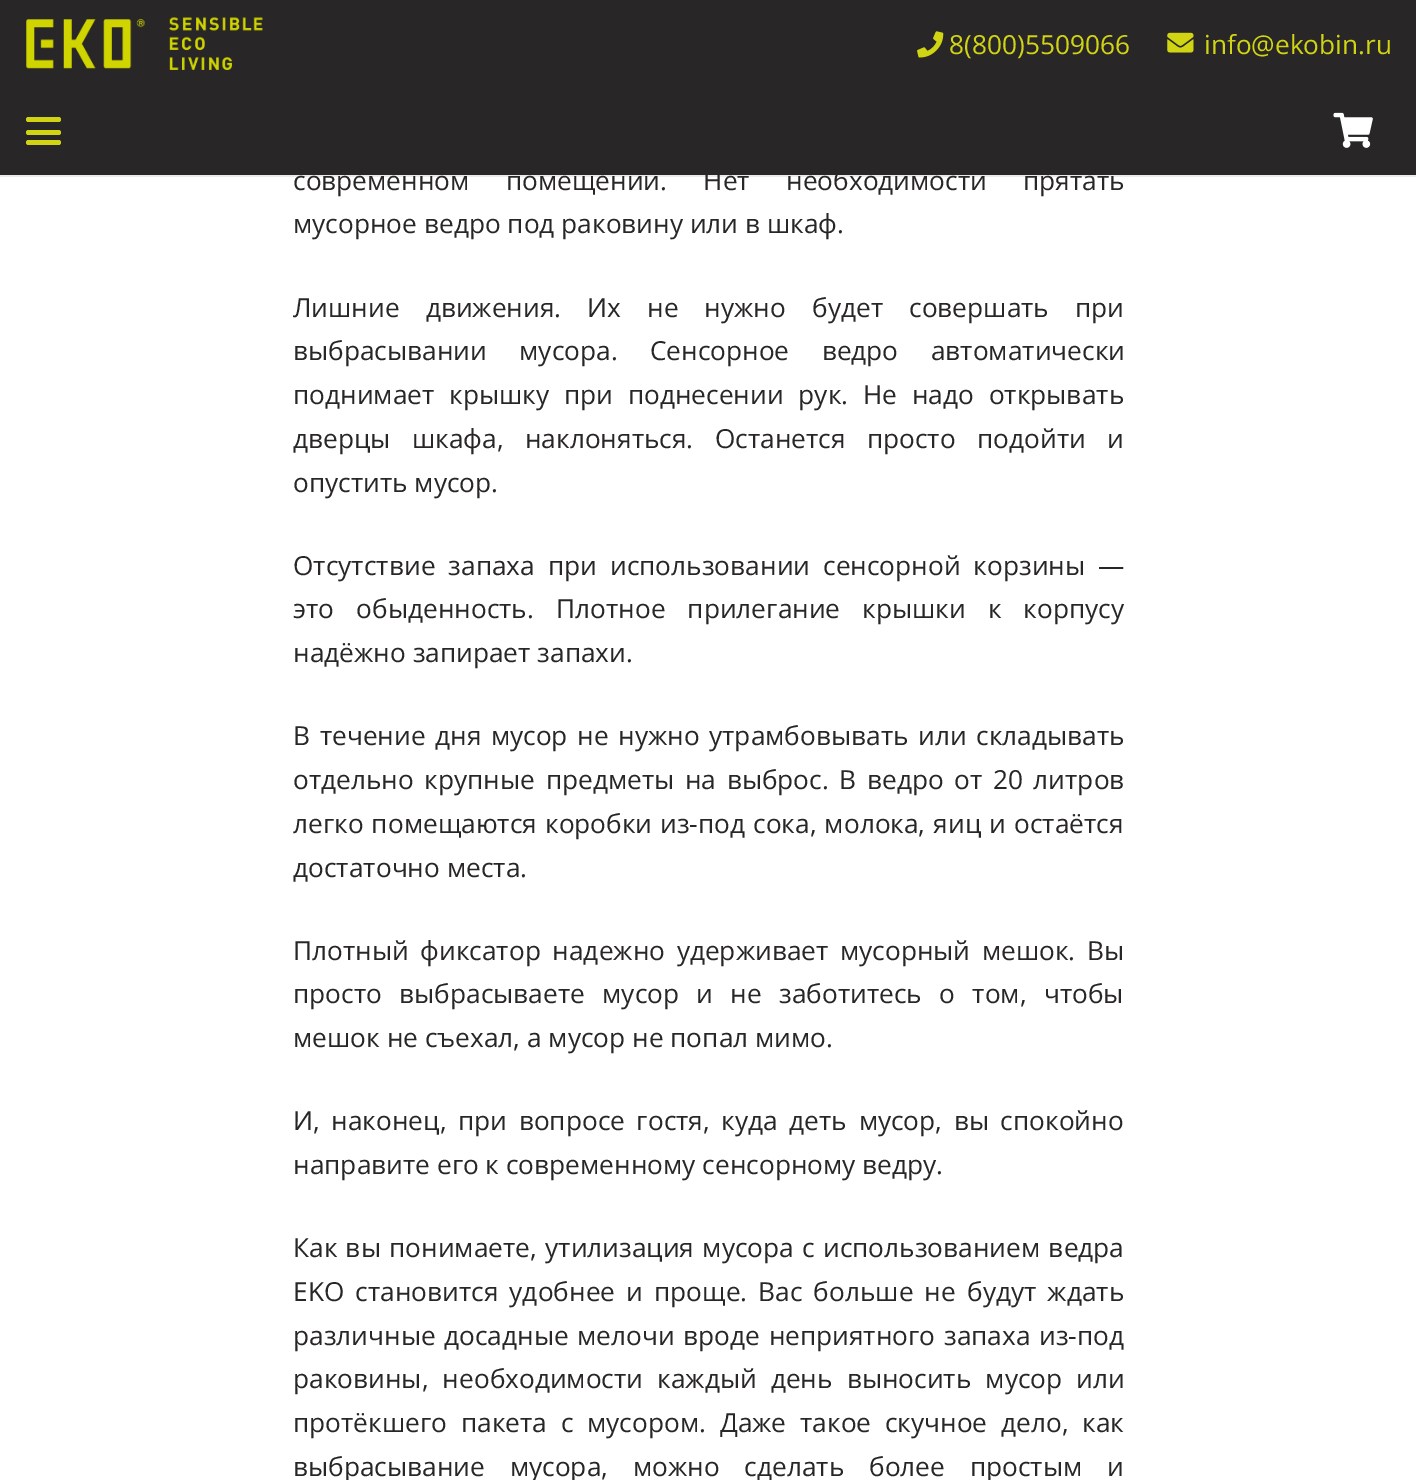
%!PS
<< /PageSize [1416 1480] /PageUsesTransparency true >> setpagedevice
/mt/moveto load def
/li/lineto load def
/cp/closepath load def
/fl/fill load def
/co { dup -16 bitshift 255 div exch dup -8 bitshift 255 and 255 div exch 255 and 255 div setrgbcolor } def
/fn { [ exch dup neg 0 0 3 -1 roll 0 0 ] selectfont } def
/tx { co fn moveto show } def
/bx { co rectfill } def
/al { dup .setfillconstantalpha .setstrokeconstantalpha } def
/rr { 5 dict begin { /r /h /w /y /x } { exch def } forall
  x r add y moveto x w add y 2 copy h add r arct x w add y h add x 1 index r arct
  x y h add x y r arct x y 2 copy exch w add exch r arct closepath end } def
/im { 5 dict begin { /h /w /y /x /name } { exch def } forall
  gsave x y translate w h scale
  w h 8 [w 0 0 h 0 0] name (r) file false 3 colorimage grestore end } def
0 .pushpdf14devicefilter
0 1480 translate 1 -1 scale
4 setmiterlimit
0 0 1416 1480 16#FFFFFF bx
0 0 1416 175 16#282626 bx
(media/1.raw) 26 17 237 53 im
(media/2.raw) 917 31 27 27 im
(media/3.raw) 1167 32 27 21 im
0.08 al
16#000000 co
0 175 mt 0 177 li 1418 177 li 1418 89 li 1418 175 li cp fl
1 al
16#D0D413 co
26 130 35 5 2.5 rr fl
26 117 35 5 2.5 rr fl
26 140 35 5 2.5 rr fl
(media/4.raw) 1333 112 40 36 im
(8\(800\)5509066) 949 54 /OpenSans-Regular 26.25 16#D0D413 tx
(info@ekobin.ru) 1204 54 /OpenSans-Regular 26.25 16#D0D413 tx
16#282626 co
293 190 mt 29.5 0 32 (современном помещении. Нет необходимости прятать) widthshow
(мусорное ведро под раковину или в шкаф.) 293 233 /OpenSans-Regular 26.25 16#282626 tx
293 317 mt 19.25 0 32 (Лишние движения. Их не нужно будет совершать при) widthshow
293 360 mt 25.5 0 32 (выбрасывании мусора. Сенсорное ведро автоматически) widthshow
293 404 mt 8 0 32 (поднимает крышку при поднесении рук. Не надо открывать) widthshow
293 448 mt 14.5 0 32 (дверцы шкафа, наклоняться. Останется просто подойти и) widthshow
(опустить мусор.) 293 492 /OpenSans-Regular 26.25 16#282626 tx
293 575 mt 6.25 0 32 (Отсутствие запаха при использовании сенсорной корзины —) widthshow
293 618 mt 15.25 0 32 (это обыденность. Плотное прилегание крышки к корпусу) widthshow
(надёжно запирает запахи.) 293 662 /OpenSans-Regular 26.25 16#282626 tx
293 745 mt 2.75 0 32 (В течение дня мусор не нужно утрамбовывать или складывать) widthshow
293 789 mt 3.75 0 32 (отдельно крупные предметы на выброс. В ведро от 20 литров) widthshow
293 833 mt 1.25 0 32 (легко помещаются коробки из-под сока, молока, яиц и остаётся) widthshow
(достаточно места.) 293 877 /OpenSans-Regular 26.25 16#282626 tx
293 960 mt 4.75 0 32 (Плотный фиксатор надежно удерживает мусорный мешок. Вы) widthshow
293 1003 mt 10.5 0 32 (просто выбрасываете мусор и не заботитесь о том, чтобы) widthshow
(мешок не съехал, а мусор не попал мимо.) 293 1047 /OpenSans-Regular 26.25 16#282626 tx
293 1130 mt 4.75 0 32 (И, наконец, при вопросе гостя, куда деть мусор, вы спокойно) widthshow
(направите его к современному сенсорному ведру.) 293 1174 /OpenSans-Regular 26.25 16#282626 tx
293 1257 mt 1.5 0 32 (Как вы понимаете, утилизация мусора с использованием ведра) widthshow
293 1301 mt 4.25 0 32 (EKO становится удобнее и проще. Вас больше не будут ждать) widthshow
293 1345 mt 1.75 0 32 (различные досадные мелочи вроде неприятного запаха из-под) widthshow
293 1388 mt 7.25 0 32 (раковины, необходимости каждый день выносить мусор или) widthshow
293 1432 mt 7 0 32 (протёкшего пакета с мусором. Даже такое скучное дело, как) widthshow
293 1476 mt 18 0 32 (выбрасывание мусора, можно сделать более простым и) widthshow
.poppdf14devicefilter showpage
